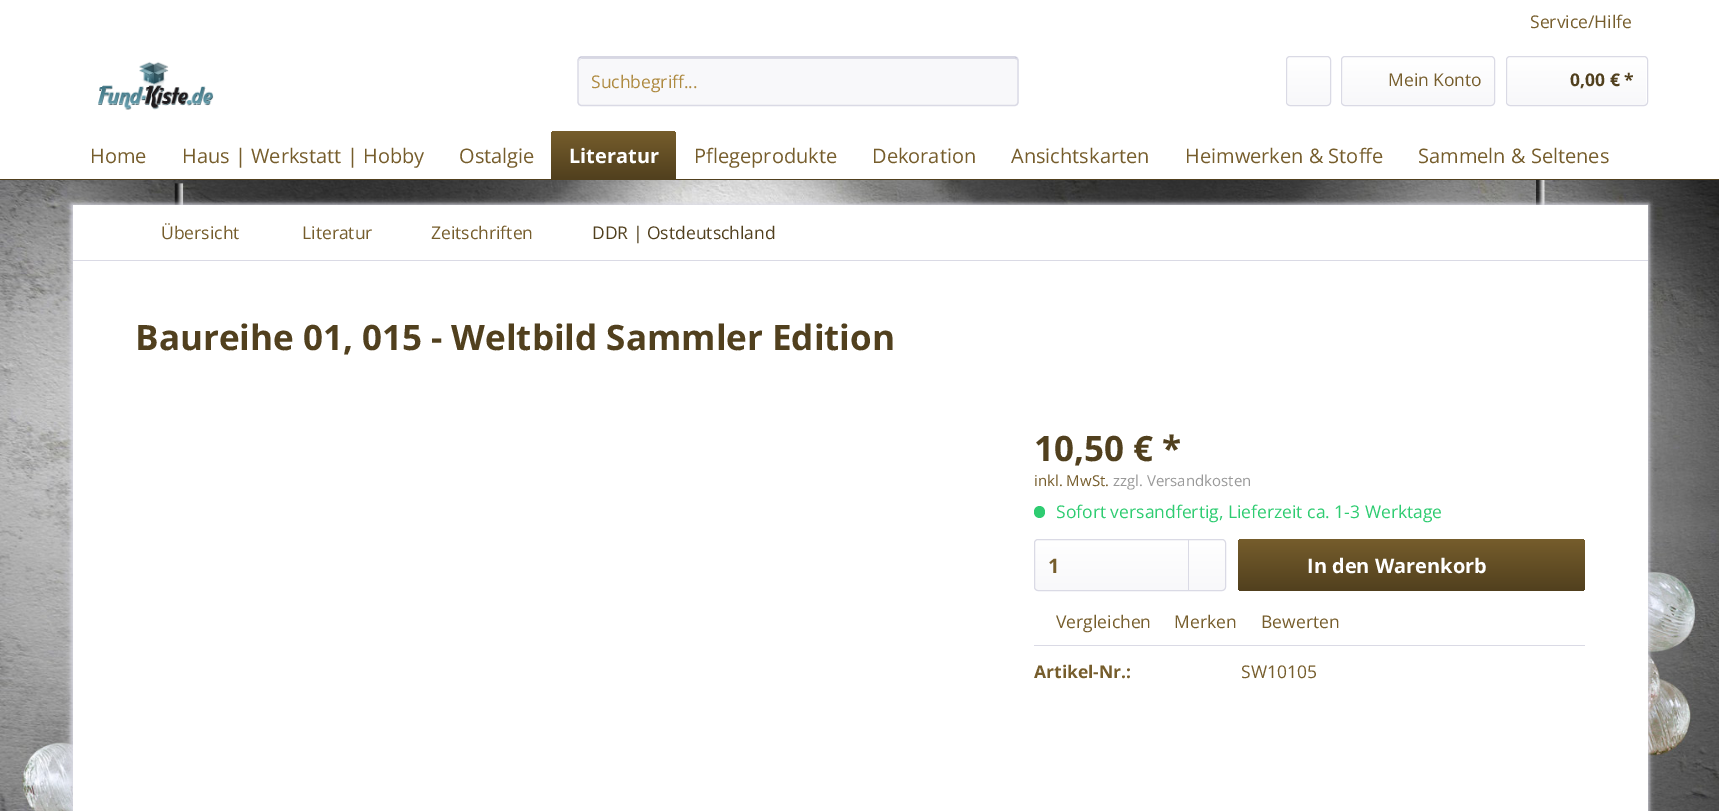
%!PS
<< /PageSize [1719 811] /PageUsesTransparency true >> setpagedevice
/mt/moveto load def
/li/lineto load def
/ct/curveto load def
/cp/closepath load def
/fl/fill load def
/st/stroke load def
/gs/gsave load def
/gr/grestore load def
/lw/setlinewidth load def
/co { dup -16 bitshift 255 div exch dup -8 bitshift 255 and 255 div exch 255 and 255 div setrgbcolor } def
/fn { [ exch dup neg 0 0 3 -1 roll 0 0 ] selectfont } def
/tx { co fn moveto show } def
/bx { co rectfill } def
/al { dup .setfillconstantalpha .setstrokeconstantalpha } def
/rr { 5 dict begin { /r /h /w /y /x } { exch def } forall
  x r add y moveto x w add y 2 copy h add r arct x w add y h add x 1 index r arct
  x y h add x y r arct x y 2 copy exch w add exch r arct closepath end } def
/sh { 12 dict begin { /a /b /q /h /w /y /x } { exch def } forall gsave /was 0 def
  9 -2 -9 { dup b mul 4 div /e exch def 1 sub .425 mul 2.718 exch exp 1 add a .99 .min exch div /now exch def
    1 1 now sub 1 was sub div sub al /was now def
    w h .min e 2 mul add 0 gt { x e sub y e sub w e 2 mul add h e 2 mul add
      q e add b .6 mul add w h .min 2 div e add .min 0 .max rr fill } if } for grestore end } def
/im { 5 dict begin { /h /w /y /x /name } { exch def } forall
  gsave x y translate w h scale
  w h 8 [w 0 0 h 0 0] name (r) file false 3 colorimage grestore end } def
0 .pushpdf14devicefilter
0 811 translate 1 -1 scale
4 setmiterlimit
0 0 1719 811 16#FFFFFF bx
(media/1.raw) 98 61 116 49 im
16#F8F8FA co
578 56 441 50 4 rr fl
16#DADAE5 co
581 59 mt 1015 59 li 1016 59 1018 60 1018 61 ct 1018 59 1017 58 1016 58 ct 582 58 li 580 59 li 579 61 li 579 60 580 59 581 59 ct cp fl
16#CBCBDB co
1.2 lw
579 58 mt 581 57 li 1015 57 li 1017 58 li st
16#DADAE5 co
1017 58 mt 1018 60 li 1018 102.5 li 1017 104.5 li 1015 105.5 li 581 105.5 li 579 104.5 li 578 102.5 li 578 60 li 579 58 li st
gs 1288 58 42 47 2.5 rr clip newpath
<< /ShadingType 2 /ColorSpace /DeviceRGB /Coords [1309 58 1309 105] /Extend [true true] /Function << /FunctionType 2 /Domain [0 1] /C0 [1 1 1] /C1 [.973 .973 .98] /N 1 >> >> shfill gr
1 lw
1286.5 56.5 44 49 3.5 rr st
gs 1343 58 151 47 2.5 rr clip newpath
<< /ShadingType 2 /ColorSpace /DeviceRGB /Coords [1418 57 1418 105] /Extend [true true] /Function << /FunctionType 2 /Domain [0 1] /C0 [1 1 1] /C1 [.973 .973 .98] /N 1 >> >> shfill gr
1341.5 56.5 153 49 3.5 rr st
gs 1508 58 138 47 2.5 rr clip newpath
<< /ShadingType 2 /ColorSpace /DeviceRGB /Coords [1577 57 1577 105] /Extend [true true] /Function << /FunctionType 2 /Domain [0 1] /C0 [1 1 1] /C1 [.973 .973 .98] /N 1 >> >> shfill gr
1506.5 56.5 141 49 3.5 rr st
0 179 1719 1 16#51401E bx
gs 555 131 mt 672 131 li 674 131 676 133 676 135 ct 676 179 li 551 179 li 551 135 li 551 133 553 131 555 131 ct cp clip newpath
<< /ShadingType 2 /ColorSpace /DeviceRGB /Coords [614 131 614 179] /Extend [true true] /Function << /FunctionType 2 /Domain [0 1] /C0 [.463 .365 .173] /C1 [.318 .251 .118] /N 1 >> >> shfill gr
(media/2.raw) 0 180 1719 631 im
16#DADAE5 co
71 204 1578 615 0 2.5 1 sh
73 205 1575 606 16#FFFFFF bx
73 260 1575 1 16#DADAE5 bx
16#2ECC71 co
1034 506 11 12 5.5 rr fl
gs 1035 540 190 50 2.5 rr clip newpath
<< /ShadingType 2 /ColorSpace /DeviceRGB /Coords [1130 540 1130 590] /Extend [true true] /Function << /FunctionType 2 /Domain [0 1] /C0 [1 1 1] /C1 [.973 .973 .98] /N 1 >> >> shfill gr
16#DADAE5 co
1034.5 539.5 191 51 3.5 rr st
1188 540 1 50 16#DADAE5 bx
gs 1238 539 347 52 4 rr clip newpath
<< /ShadingType 2 /ColorSpace /DeviceRGB /Coords [1411 539 1411 591] /Extend [true true] /Function << /FunctionType 2 /Domain [0 1] /C0 [.463 .365 .173] /C1 [.318 .251 .118] /N 1 >> >> shfill gr
1034 645 551 1 16#DADAE5 bx
(Service/Hilfe) 1530 28 /OpenSans-Regular 17.5 16#765D2C tx
(Suchbegriff...) 591 88 /OpenSans-Regular 17.5 16#AE8A40 tx
(Mein Konto) 1388 86 /OpenSans-Regular 17.5 16#765D2C tx
(0,00 € *) 1570 86 /OpenSans-Bold 17.5 16#51401E tx
(Home) 90 163 /OpenSans-Regular 20 16#765D2C tx
(Haus | Werkstatt | Hobby) 182 163 /OpenSans-Regular 20 16#765D2C tx
(Ostalgie) 459 163 /OpenSans-Regular 20 16#765D2C tx
(Literatur) 569 163 /OpenSans-Bold 20 16#FFFFFF tx
(Pflegeprodukte) 694 163 /OpenSans-Regular 20 16#765D2C tx
(Dekoration) 872 163 /OpenSans-Regular 20 16#765D2C tx
(Ansichtskarten) 1011 163 /OpenSans-Regular 20 16#765D2C tx
(Heimwerken & Stoffe) 1185 163 /OpenSans-Regular 20 16#765D2C tx
(Sammeln & Seltenes) 1418 163 /OpenSans-Regular 20 16#765D2C tx
(Übersicht) 161 239 /OpenSans-Regular 17.5 16#765D2C tx
(Literatur) 302 239 /OpenSans-Regular 17.5 16#765D2C tx
(Zeitschriften) 431 239 /OpenSans-Regular 17.5 16#765D2C tx
(DDR | Ostdeutschland) 592 239 /OpenSans-Regular 17.5 16#51401E tx
(Baureihe 01, 015 - Weltbild Sammler Edition) 135 350 /OpenSans-Bold 35 16#51401E tx
(10,50 € *) 1034 461 /OpenSans-Bold 35 16#51401E tx
(inkl. MwSt.) 1034 486 /OpenSans-Regular 15 16#765D2C tx
(zzgl. Versandkosten) 1113 486 /OpenSans-Regular 15 16#999999 tx
(Sofort versandfertig, Lieferzeit ca. 1-3 Werktage) 1056 518 /OpenSans-Regular 17.5 16#2ECC71 tx
(1) 1048 573 /OpenSans-Bold 20 16#765D2C tx
(In den Warenkorb) 1307 573 /OpenSans-Bold 20 16#FFFFFF tx
(Vergleichen) 1056 628 /OpenSans-Regular 17.5 16#765D2C tx
(Merken) 1174 628 /OpenSans-Regular 17.5 16#765D2C tx
(Bewerten) 1261 628 /OpenSans-Regular 17.5 16#765D2C tx
(Artikel-Nr.:) 1034 678 /OpenSans-Bold 17.5 16#765D2C tx
(SW10105) 1241 678 /OpenSans-Regular 17.5 16#765D2C tx
.poppdf14devicefilter showpage
